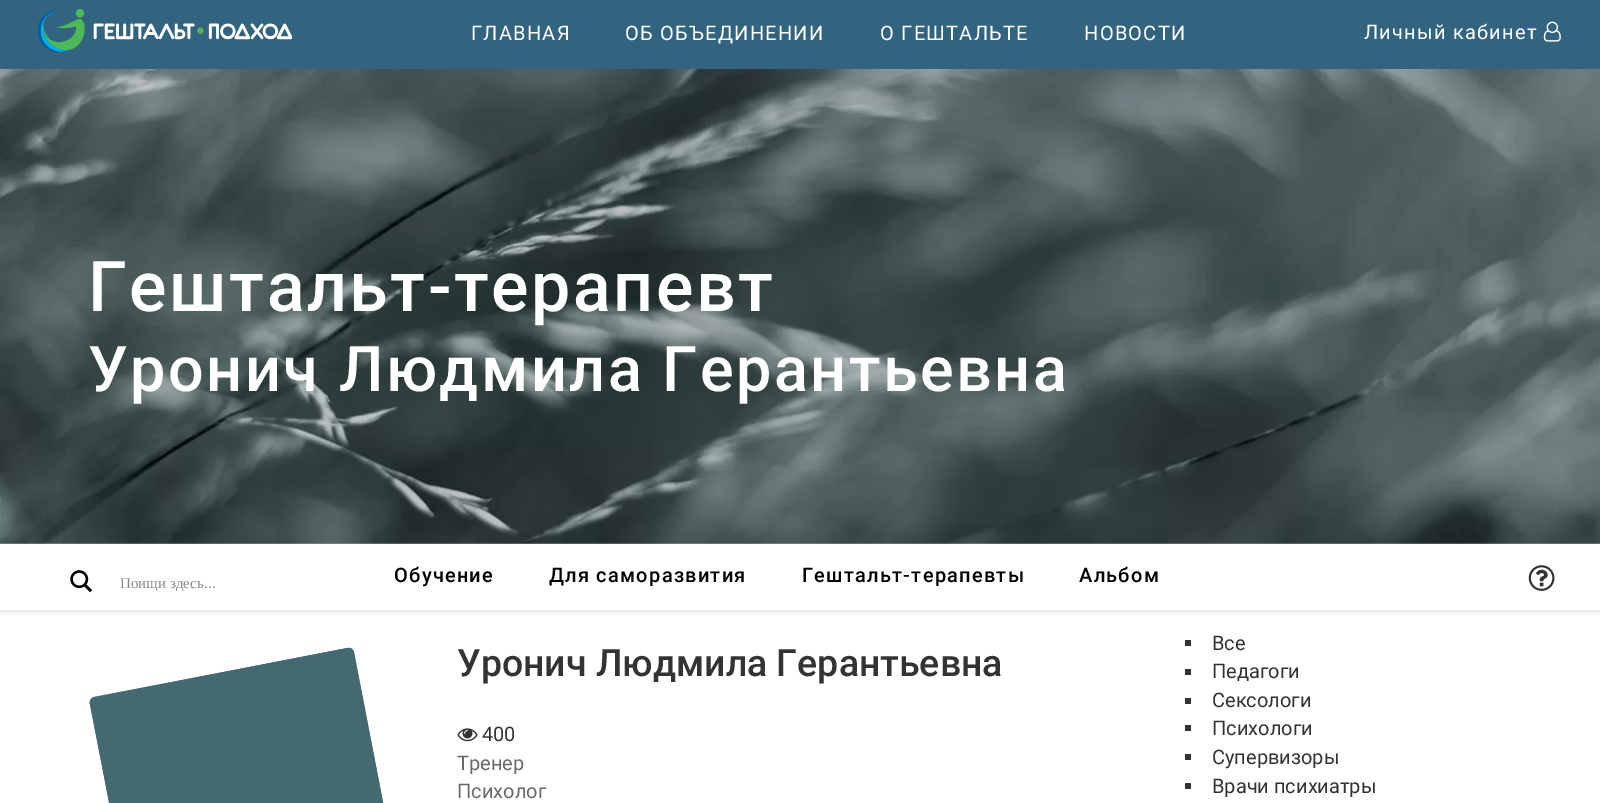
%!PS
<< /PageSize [1600 803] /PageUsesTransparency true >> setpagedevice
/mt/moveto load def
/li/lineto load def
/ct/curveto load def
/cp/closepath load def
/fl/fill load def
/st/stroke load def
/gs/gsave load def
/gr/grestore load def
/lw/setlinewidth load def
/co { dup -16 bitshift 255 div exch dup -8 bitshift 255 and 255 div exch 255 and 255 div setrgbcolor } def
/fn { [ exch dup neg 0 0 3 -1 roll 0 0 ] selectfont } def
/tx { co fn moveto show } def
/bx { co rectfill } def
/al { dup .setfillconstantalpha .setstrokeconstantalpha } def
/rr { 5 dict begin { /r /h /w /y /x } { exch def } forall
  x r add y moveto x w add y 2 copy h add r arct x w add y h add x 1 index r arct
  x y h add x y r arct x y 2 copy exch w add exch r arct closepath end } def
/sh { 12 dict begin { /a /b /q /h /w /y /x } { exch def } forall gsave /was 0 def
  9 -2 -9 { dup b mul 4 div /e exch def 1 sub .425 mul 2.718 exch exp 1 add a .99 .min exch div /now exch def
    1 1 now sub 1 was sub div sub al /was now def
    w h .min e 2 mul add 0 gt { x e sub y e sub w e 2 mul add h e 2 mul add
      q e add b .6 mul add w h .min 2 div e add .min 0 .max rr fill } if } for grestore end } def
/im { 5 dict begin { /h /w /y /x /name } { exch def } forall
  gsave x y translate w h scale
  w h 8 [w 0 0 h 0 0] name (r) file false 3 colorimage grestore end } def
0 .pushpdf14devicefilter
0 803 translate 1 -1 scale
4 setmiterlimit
0 0 1600 803 16#FFFFFF bx
0 0 1600 69 16#33647F bx
(media/3.raw) 0 68 1600 476 im
0 0 1600 69 5 rr fl
(media/1.raw) 38 9 255 43 im
(media/2.raw) 1543 21 18 21 im
gs
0 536 mt 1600 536 li 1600 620 li 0 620 li cp 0 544 mt 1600 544 li 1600 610 li 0 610 li cp eoclip newpath
16#223C50 co
0 545 1600 66 0 2.5 .2 sh
gr
(media/4.raw) 70 570 23 23 im
(media/5.raw) 1528 565 27 26 im
16#446971 co
94 697 mt 348 648 li 350 648 353 649 354 652 ct 403 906 li 404 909 402 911 399 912 ct 145 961 li 143 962 140 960 139 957 ct 90 704 li 89 701 91 698 94 697 ct cp fl
2.1 lw
94.5 698.5 mt 348 649 li 350 648.5 352.5 650 352.5 652.5 ct 402 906 li 402.5 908 401 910.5 398.5 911 ct 145 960 li 143 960.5 141 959 140.5 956.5 ct 91 703.5 li 90.5 701 92 699 94.5 698.5 ct cp st
(media/6.raw) 457 728 21 14 im
1185 640 6 6 16#333333 bx
1185 669 6 6 16#333333 bx
1185 698 6 6 16#333333 bx
1185 725 6 6 16#333333 bx
1185 754 6 6 16#333333 bx
1185 783 6 6 16#333333 bx
/Roboto-Regular 20 fn
16#FFFFFF co
471 40 mt 1.25 0 (ГЛАВНАЯ) ashow
625 40 mt 1.25 0 (ОБ ОБЪЕДИНЕНИИ) ashow
880 40 mt 1.25 0 (О ГЕШТАЛЬТЕ) ashow
1084 40 mt 1.25 0 (НОВОСТИ) ashow
1364 39 mt 1.25 0 (Личный кабинет) ashow
/Roboto-Medium 70 fn
88 311 mt 2.5 0 (Гештальт-терапевт) ashow
/Roboto-Medium 63 fn
88 391 mt 2.5 0 (Уронич Людмила Герантьевна) ashow
(Поищи здесь) 120 588 /LiberationSerif-Regular 15 16#8C8B8B tx
(...) 204 588 /OpenSans-Regular 15 16#8C8B8B tx
/Roboto-Medium 20 fn
16#000000 co
394 582 mt 1.25 0 (Обучение) ashow
549 582 mt 1.25 0 (Для саморазвития) ashow
802 582 mt 1.25 0 (Гештальт-терапевты) ashow
1079 582 mt 1.25 0 (Альбом) ashow
(Уронич Людмила Герантьевна) 457 676 /Roboto-Medium 37.5 16#333333 tx
(400) 482 741 /Roboto-Regular 20 16#333333 tx
(Тренер) 457 770 /Roboto-Regular 20 16#696969 tx
(Психолог) 457 798 /Roboto-Regular 20 16#696969 tx
(Все) 1212 650 /Roboto-Regular 20 16#333333 tx
(Педагоги) 1212 678 /Roboto-Regular 20 16#333333 tx
(Сексологи) 1212 707 /Roboto-Regular 20 16#333333 tx
(Психологи) 1212 735 /Roboto-Regular 20 16#333333 tx
(Супервизоры) 1212 764 /Roboto-Regular 20 16#333333 tx
(Врачи психиатры) 1212 793 /Roboto-Regular 20 16#333333 tx
.poppdf14devicefilter showpage
